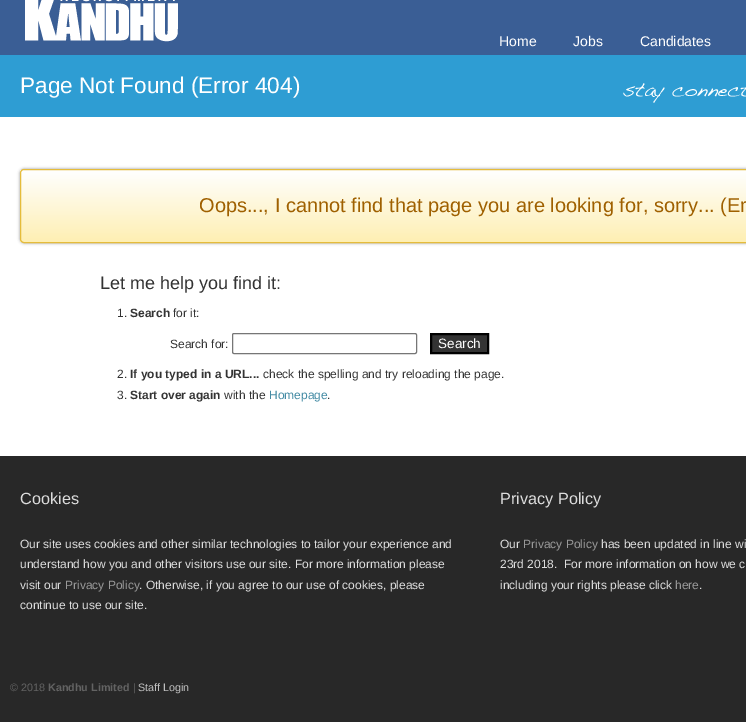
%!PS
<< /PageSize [746 722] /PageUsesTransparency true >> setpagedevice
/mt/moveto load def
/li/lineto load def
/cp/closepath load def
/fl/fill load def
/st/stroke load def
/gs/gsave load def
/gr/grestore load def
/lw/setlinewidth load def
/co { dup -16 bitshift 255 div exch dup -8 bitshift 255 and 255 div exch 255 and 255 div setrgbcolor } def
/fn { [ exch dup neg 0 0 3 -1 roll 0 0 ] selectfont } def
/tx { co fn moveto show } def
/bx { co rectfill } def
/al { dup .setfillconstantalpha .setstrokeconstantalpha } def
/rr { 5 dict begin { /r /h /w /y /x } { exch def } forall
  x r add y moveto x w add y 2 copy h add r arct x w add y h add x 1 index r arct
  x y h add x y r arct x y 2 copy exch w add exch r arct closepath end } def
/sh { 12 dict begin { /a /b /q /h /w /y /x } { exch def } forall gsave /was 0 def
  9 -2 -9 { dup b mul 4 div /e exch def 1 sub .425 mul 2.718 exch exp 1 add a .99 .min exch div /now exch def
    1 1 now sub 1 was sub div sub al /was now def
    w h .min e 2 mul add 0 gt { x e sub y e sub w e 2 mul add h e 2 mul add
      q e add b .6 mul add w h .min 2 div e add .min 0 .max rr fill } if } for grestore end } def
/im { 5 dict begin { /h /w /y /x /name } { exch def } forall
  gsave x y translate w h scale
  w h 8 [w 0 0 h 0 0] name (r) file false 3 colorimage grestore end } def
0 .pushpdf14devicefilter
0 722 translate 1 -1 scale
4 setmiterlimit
0 0 746 722 16#3A5E95 bx
(media/1.raw) 25 0 153 42 im
0 55 746 62 16#2E9DD3 bx
(media/2.raw) 623 83 123 20 im
0 117 746 339 16#FFFFFF bx
16#999999 co
20 169 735 74 4 1.5 1 sh
gs
20 169 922 74 4 rr clip newpath
gs 20 170 mt 746 170 li 746 242 li 20 242 li cp clip newpath
<< /ShadingType 2 /ColorSpace /DeviceRGB /Coords [481 170 481 242] /Extend [true true] /Function << /FunctionType 2 /Domain [0 1] /C0 [1 1 1] /C1 [.996 .937 .702] /N 1 >> >> shfill gr
gr
16#E5BC3B co
20.5 169.5 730 73 3.5 rr st
16#767676 co
232.5 333.5 184 20 1.5 rr st
16#333333 co
431 334 mt 488 334 li 488 353 li 431 353 li cp gs fl gr
16#000000 co
2 lw
st
0 456 746 266 16#282828 bx
(Home) 499 46 /LiberationSans-Regular 14 16#FFFFFF tx
(Jobs) 573 46 /LiberationSans-Regular 14 16#FFFFFF tx
(Candidates) 640 46 /LiberationSans-Regular 14 16#FFFFFF tx
(Page Not Found \(Error 404\)) 20 93 /LiberationSans-Regular 22.6 16#FFFFFF tx
(Oops..., I cannot find that page you are looking for, sorry... \(Er) 199 212 /LiberationSans-Regular 20 16#9F6000 tx
(Let me help you find it:) 100 289 /LiberationSans-Regular 18 16#333333 tx
(1.) 117 317 /LiberationSans-Regular 12 16#333333 tx
(Search) 130 317 /LiberationSans-Bold 12 16#333333 tx
(for it:) 173 317 /LiberationSans-Regular 12 16#333333 tx
(Search for:) 170 348 /LiberationSans-Regular 12 16#333333 tx
(Search) 438 348 /LiberationSans-Regular 13.5 16#FFFFFF tx
(2.) 117 378 /LiberationSans-Regular 12 16#333333 tx
(If you typed in a URL...) 130 378 /LiberationSans-Bold 12 16#333333 tx
(check the spelling and try reloading the page.) 263 378 /LiberationSans-Regular 12 16#333333 tx
(3.) 117 399 /LiberationSans-Regular 12 16#333333 tx
(Start over again) 130 399 /LiberationSans-Bold 12 16#333333 tx
(with the) 224 399 /LiberationSans-Regular 12 16#333333 tx
(Homepage) 269 399 /LiberationSans-Regular 12 16#448BA4 tx
(.) 327 399 /LiberationSans-Regular 12 16#333333 tx
(Cookies) 20 504 /LiberationSans-Regular 16.25 16#DDDDDD tx
(Our site uses cookies and other similar technologies to tailor your experience and) 20 548 /LiberationSans-Regular 12 16#DDDDDD tx
(understand how you and other visitors use our site. For more information please) 20 568 /LiberationSans-Regular 12 16#DDDDDD tx
(visit our) 20 589 /LiberationSans-Regular 12 16#DDDDDD tx
(Privacy Policy) 65 589 /LiberationSans-Regular 12 16#999999 tx
(. Otherwise, if you agree to our use of cookies, please) 139 589 /LiberationSans-Regular 12 16#DDDDDD tx
(continue to use our site.) 20 609 /LiberationSans-Regular 12 16#DDDDDD tx
(Privacy Policy) 500 504 /LiberationSans-Regular 16.25 16#DDDDDD tx
(Our) 500 548 /LiberationSans-Regular 12 16#DDDDDD tx
(Privacy Policy) 523 548 /LiberationSans-Regular 12 16#999999 tx
(has been updated in line wi) 601 548 /LiberationSans-Regular 12 16#DDDDDD tx
(23rd 2018.  For more information on how we c) 500 568 /LiberationSans-Regular 12 16#DDDDDD tx
(including your rights please click) 500 589 /LiberationSans-Regular 12 16#DDDDDD tx
(here) 675 589 /LiberationSans-Regular 12 16#999999 tx
(.) 699 589 /LiberationSans-Regular 12 16#DDDDDD tx
(© 2018) 10 691 /LiberationSans-Regular 10.75 16#636363 tx
(Kandhu Limited) 48 691 /LiberationSans-Bold 10.75 16#636363 tx
(|) 133 691 /LiberationSans-Regular 10.75 16#636363 tx
(Staff Login) 138 691 /LiberationSans-Regular 10.75 16#BFBFBF tx
.poppdf14devicefilter showpage
